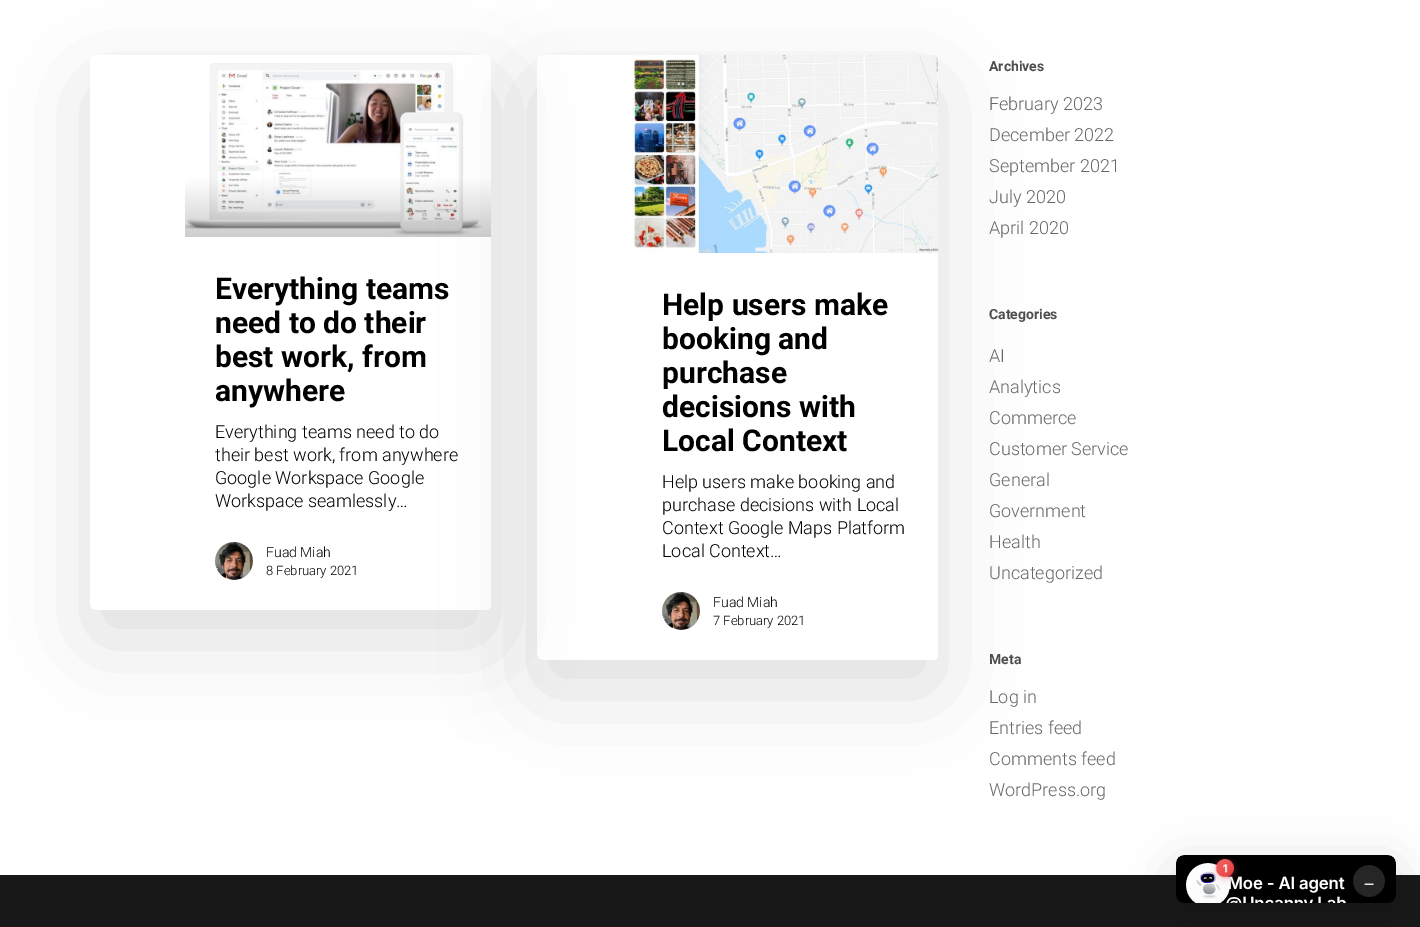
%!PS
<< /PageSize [1420 927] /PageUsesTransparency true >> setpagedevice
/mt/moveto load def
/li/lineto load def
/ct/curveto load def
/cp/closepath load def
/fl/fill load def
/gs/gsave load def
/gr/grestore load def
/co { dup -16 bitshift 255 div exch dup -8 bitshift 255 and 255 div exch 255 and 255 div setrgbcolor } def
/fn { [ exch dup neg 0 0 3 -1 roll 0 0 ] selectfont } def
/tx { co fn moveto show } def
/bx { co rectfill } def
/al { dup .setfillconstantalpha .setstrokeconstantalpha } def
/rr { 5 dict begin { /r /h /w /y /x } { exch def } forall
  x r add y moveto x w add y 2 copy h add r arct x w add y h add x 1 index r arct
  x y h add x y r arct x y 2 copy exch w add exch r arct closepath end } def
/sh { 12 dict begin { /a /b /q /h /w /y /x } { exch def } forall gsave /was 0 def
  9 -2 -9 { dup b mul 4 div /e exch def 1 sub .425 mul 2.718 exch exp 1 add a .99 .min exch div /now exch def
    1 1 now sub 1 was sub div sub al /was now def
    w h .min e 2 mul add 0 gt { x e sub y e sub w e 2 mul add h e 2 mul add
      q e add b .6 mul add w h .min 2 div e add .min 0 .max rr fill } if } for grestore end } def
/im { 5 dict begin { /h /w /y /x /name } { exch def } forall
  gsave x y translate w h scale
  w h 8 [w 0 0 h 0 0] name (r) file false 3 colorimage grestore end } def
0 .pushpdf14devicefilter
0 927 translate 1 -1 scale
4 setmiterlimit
0 0 1420 927 16#FFFFFF bx
gs
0 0 mt 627 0 li 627 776 li 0 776 li cp 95 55 mt 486 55 li 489 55 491 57 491 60 ct 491 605 li 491 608 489 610 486 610 ct 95 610 li 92 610 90 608 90 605 ct 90 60 li 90 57 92 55 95 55 ct cp eoclip newpath
16#000000 co
90 85 401 555 5 45 .14 sh
gr
(media/1.raw) 185 63 306 174 im
185 262 mt 491 262 li 491 605 li 491 608 489 610 486 610 ct 185 610 li cp fl
(media/2.raw) 215 542 38 38 im
gs
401 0 mt 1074 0 li 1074 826 li 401 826 li cp 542 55 mt 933 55 li 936 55 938 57 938 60 ct 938 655 li 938 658 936 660 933 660 ct 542 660 li 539 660 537 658 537 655 ct 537 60 li 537 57 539 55 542 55 ct cp eoclip newpath
16#000000 co
537 85 401 605 5 45 .14 sh
gr
(media/3.raw) 632 55 306 198 im
632 278 mt 938 278 li 938 655 li 938 658 936 660 933 660 ct 632 660 li cp fl
(media/4.raw) 662 592 38 38 im
0 875 1420 52 16#181818 bx
16#000000 co
1172 863 228 56 12 24 .12 sh
(media/5.raw) 1176 855 220 48 im
(Everything teams) 215 299 /Roboto-Bold 30 16#000000 tx
(need to do their) 215 333 /Roboto-Bold 30 16#000000 tx
(best work, from) 215 367 /Roboto-Bold 30 16#000000 tx
(anywhere) 215 401 /Roboto-Bold 30 16#000000 tx
(Everything teams need to do) 215 438 /Roboto-Light 18 16#000000 tx
(their best work, from anywhere) 215 461 /Roboto-Light 18 16#000000 tx
(Google Workspace Google) 215 484 /Roboto-Light 18 16#000000 tx
(Workspace seamlessly…) 215 507 /Roboto-Light 18 16#000000 tx
(Fuad Miah) 266 557 /Roboto-Light 14 16#000000 tx
(8 February 2021) 266 575 /Roboto-Light 13 16#000000 tx
(Help users make) 662 315 /Roboto-Bold 30 16#000000 tx
(booking and) 662 349 /Roboto-Bold 30 16#000000 tx
(purchase) 662 383 /Roboto-Bold 30 16#000000 tx
(decisions with) 662 417 /Roboto-Bold 30 16#000000 tx
(Local Context) 662 451 /Roboto-Bold 30 16#000000 tx
(Help users make booking and) 662 488 /Roboto-Light 18 16#000000 tx
(purchase decisions with Local) 662 511 /Roboto-Light 18 16#000000 tx
(Context Google Maps Platform) 662 534 /Roboto-Light 18 16#000000 tx
(Local Context…) 662 557 /Roboto-Light 18 16#000000 tx
(Fuad Miah) 713 607 /Roboto-Light 14 16#000000 tx
(7 February 2021) 713 625 /Roboto-Light 13 16#000000 tx
(Archives) 989 71 /Roboto-Bold 14 16#4D4D4D tx
(February 2023) 989 110 /Roboto-Light 18 16#676767 tx
(December 2022) 989 141 /Roboto-Light 18 16#676767 tx
(September 2021) 989 172 /Roboto-Light 18 16#676767 tx
(July 2020) 989 203 /Roboto-Light 18 16#676767 tx
(April 2020) 989 234 /Roboto-Light 18 16#676767 tx
(Categories) 989 319 /Roboto-Bold 14 16#4D4D4D tx
(AI) 989 362 /Roboto-Light 18 16#676767 tx
(Analytics) 989 393 /Roboto-Light 18 16#676767 tx
(Commerce) 989 424 /Roboto-Light 18 16#676767 tx
(Customer Service) 989 455 /Roboto-Light 18 16#676767 tx
(General) 989 486 /Roboto-Light 18 16#676767 tx
(Government) 989 517 /Roboto-Light 18 16#676767 tx
(Health) 989 548 /Roboto-Light 18 16#676767 tx
(Uncategorized) 989 579 /Roboto-Light 18 16#676767 tx
(Meta) 989 664 /Roboto-Bold 14 16#4D4D4D tx
(Log in) 989 703 /Roboto-Light 18 16#676767 tx
(Entries feed) 989 734 /Roboto-Light 18 16#676767 tx
(Comments feed) 989 765 /Roboto-Light 18 16#676767 tx
(WordPress.org) 989 796 /Roboto-Light 18 16#676767 tx
.poppdf14devicefilter showpage
